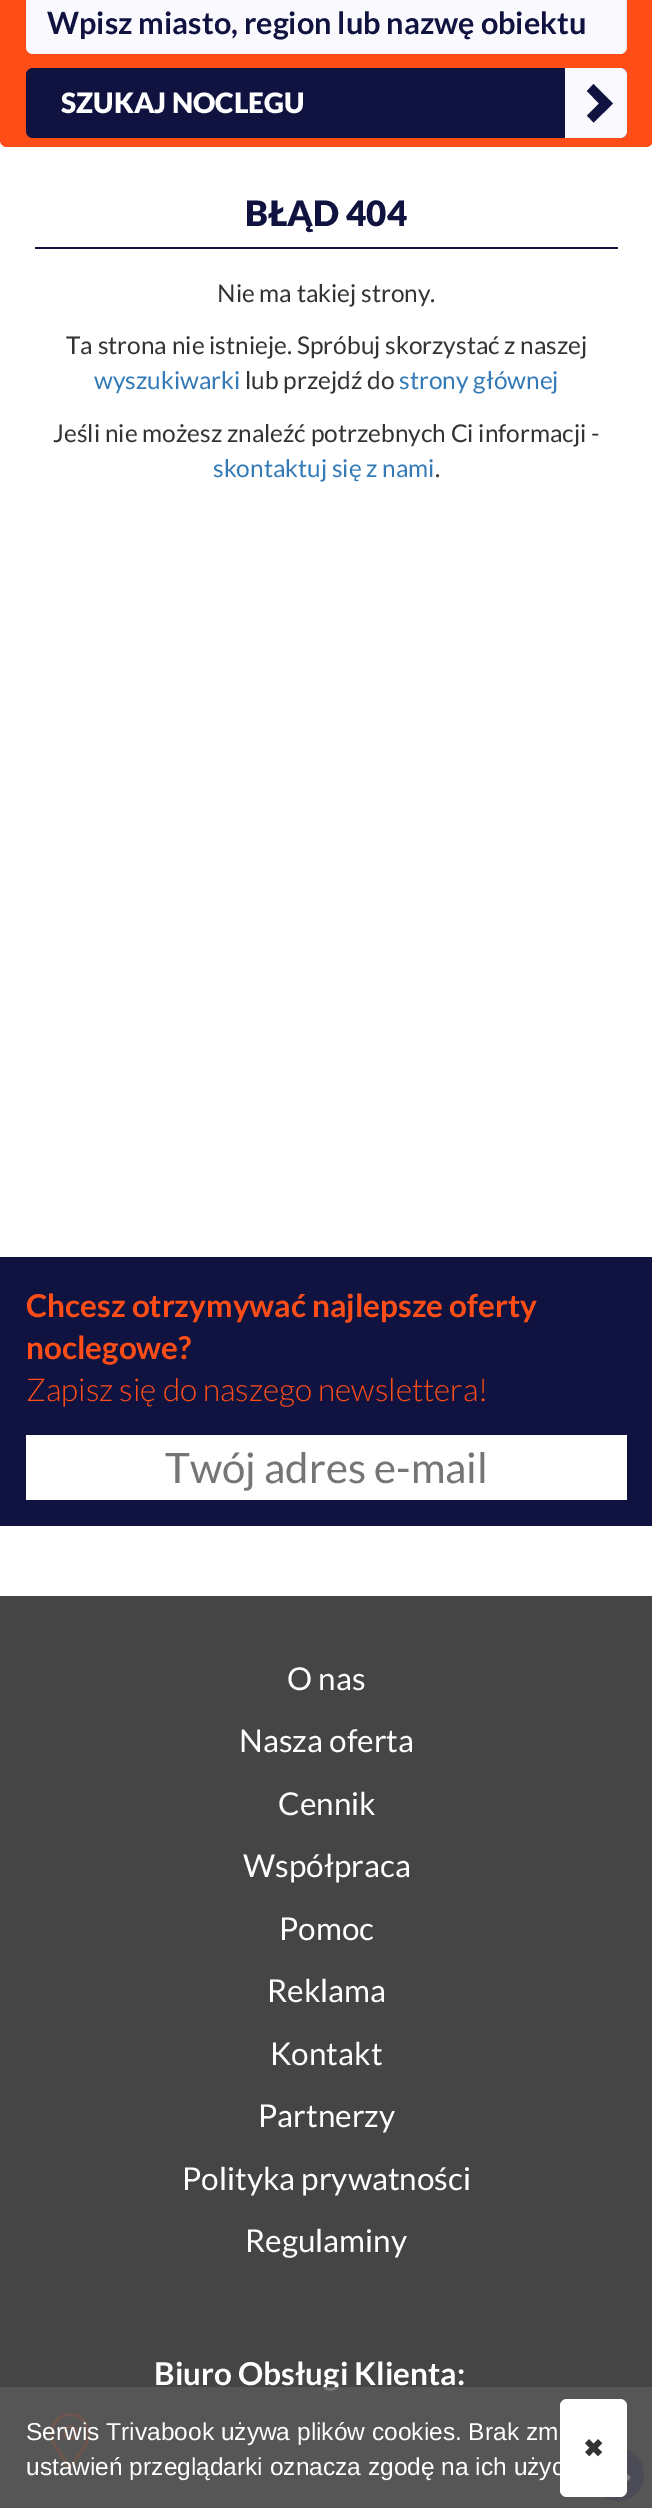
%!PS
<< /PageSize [652 2508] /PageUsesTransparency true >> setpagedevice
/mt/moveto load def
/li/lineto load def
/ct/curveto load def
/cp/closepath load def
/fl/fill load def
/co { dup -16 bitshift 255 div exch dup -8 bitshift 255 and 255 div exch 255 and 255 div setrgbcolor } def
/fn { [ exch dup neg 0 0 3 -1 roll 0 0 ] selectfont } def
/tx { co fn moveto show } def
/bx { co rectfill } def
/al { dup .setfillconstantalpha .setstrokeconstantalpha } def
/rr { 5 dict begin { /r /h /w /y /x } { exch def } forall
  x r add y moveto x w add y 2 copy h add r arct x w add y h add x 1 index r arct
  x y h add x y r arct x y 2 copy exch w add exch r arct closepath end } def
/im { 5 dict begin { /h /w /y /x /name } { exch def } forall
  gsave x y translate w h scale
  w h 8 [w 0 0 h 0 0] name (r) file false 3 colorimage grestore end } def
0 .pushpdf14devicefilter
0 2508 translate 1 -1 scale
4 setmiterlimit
0 0 652 2508 16#FFFFFF bx
16#FE4D17 co
0 -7 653 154 7 rr fl
16#F9F9FE co
26 -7 601 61 7 rr fl
0.07 al
16#000000 co
33 -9 mt 620 -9 li 623 -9 626 -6 626 -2 ct 626 51 li 627 50 627 48 627 47 ct 627 -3 li 627 -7 624 -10 620 -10 ct 33 -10 li 29 -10 26 -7 26 -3 ct 26 -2 li 26 -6 29 -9 33 -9 ct cp fl
1 al
16#101340 co
26 68 601 70 7 rr fl
16#F9F9FE co
565 68 mt 620 68 li 624 68 627 71 627 75 ct 627 131 li 627 135 624 138 620 138 ct 565 138 li cp fl
16#101340 co
613 103.5 mt 593.5 122.5 li 587 115.5 li 599 103.5 li 587 91 li 593.5 84 li cp fl
35 247 583 2 16#101340 bx
0 1257 652 269 16#101340 bx
26 1435 601 65 16#FFFFFF bx
0 1596 652 912 16#454545 bx
(media/1.raw) 48 2413 44 57 im
16#101340 co
592 2448 52 53 26 rr fl
16#FFFFFF co
631 2477.5 mt 625.5 2483 li 616.5 2473.5 li 607 2483 li 602 2477.5 li 616.5 2463 li cp fl
(Wpisz miasto, region lub nazwę obiektu) 47 34 /Lato-Bold 30.6 16#101340 tx
(SZUKAJ NOCLEGU) 61 113 /Lato-Black 28 16#FFFFFF tx
(BŁĄD 404) 245 226 /Lato-Black 35 16#101340 tx
(Nie ma takiej strony.) 217 302 /Lato-Regular 24.5 16#333333 tx
(Ta strona nie istnieje. Spróbuj skorzystać z naszej) 66 354 /Lato-Regular 24.5 16#333333 tx
(wyszukiwarki) 94 389 /Lato-Regular 24.5 16#337AB7 tx
(lub przejdź do) 245 389 /Lato-Regular 24.5 16#333333 tx
(strony głównej) 399 389 /Lato-Regular 24.5 16#337AB7 tx
(Jeśli nie możesz znaleźć potrzebnych Ci informacji -) 53 442 /Lato-Regular 24.5 16#333333 tx
(skontaktuj się z nami) 213 477 /Lato-Regular 24.5 16#337AB7 tx
(.) 435 477 /Lato-Regular 24.5 16#333333 tx
(Chcesz otrzymywać najlepsze oferty) 26 1317 /Lato-Bold 31.5 16#FE4D17 tx
(noclegowe?) 26 1359 /Lato-Bold 31.5 16#FE4D17 tx
(Zapisz się do naszego newslettera!) 26 1401 /Lato-Light 31.5 16#FE4D17 tx
(Twój adres e-mail) 165 1483 /Lato-Regular 42 16#757575 tx
(O nas) 287 1690 /Lato-Regular 31.5 16#FFFFFF tx
(Nasza oferta) 239 1752 /Lato-Regular 31.5 16#FFFFFF tx
(Cennik) 278 1815 /Lato-Regular 31.5 16#FFFFFF tx
(Współpraca) 243 1877 /Lato-Regular 31.5 16#FFFFFF tx
(Pomoc) 279 1940 /Lato-Regular 31.5 16#FFFFFF tx
(Reklama) 267 2002 /Lato-Regular 31.5 16#FFFFFF tx
(Kontakt) 270 2065 /Lato-Regular 31.5 16#FFFFFF tx
(Partnerzy) 258 2127 /Lato-Regular 31.5 16#FFFFFF tx
(Polityka prywatności) 182 2190 /Lato-Regular 31.5 16#FFFFFF tx
(Regulaminy) 245 2252 /Lato-Regular 31.5 16#FFFFFF tx
(Biuro Obsługi Klienta:) 154 2385 /Lato-Bold 31.5 16#FFFFFF tx
0.8 al
0 2387 652 121 16#5A5A5A bx
1 al
(Serwis Trivabook używa plików cookies. Brak zm) 26 2440 /LiberationSans-Regular 24.5 16#FFFFFF tx
560 2399 67 98 7 rr fl
(✖) 583 2457 /DejaVuSans-Bold 24.5 16#333333 tx
(ustawień przeglądarki oznacza zgodę na ich użyc) 26 2475 /LiberationSans-Regular 24.5 16#FFFFFF tx
.poppdf14devicefilter showpage
